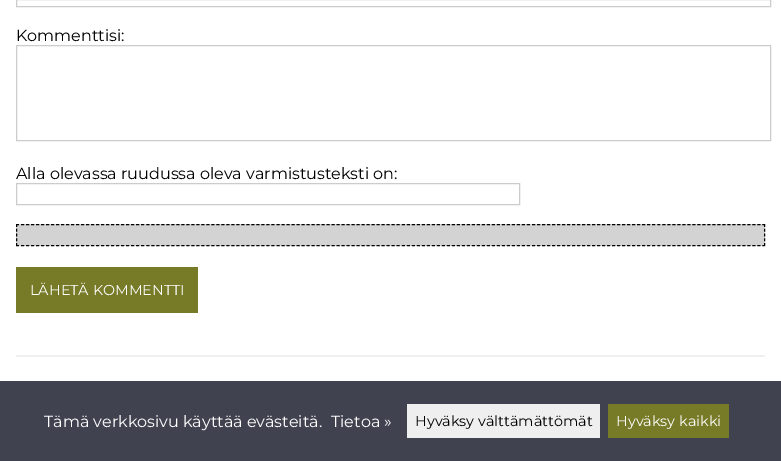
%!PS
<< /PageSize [781 461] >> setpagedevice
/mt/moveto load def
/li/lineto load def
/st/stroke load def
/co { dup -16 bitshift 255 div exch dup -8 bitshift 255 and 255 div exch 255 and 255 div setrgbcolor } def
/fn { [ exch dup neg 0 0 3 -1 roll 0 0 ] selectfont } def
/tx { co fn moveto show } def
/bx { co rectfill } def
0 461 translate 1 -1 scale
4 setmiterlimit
0 0 781 461 16#FFFFFF bx
16#CCCCCC co
16.5 -.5 754 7 rectstroke
16.5 45.5 754 95 rectstroke
16.5 183.5 503 21 rectstroke
16 224 749 22 16#D3D3D3 bx
16#000000 co
[3 2.01] 0 setdash
16 224.5 mt 765 224.5 li st
[3 1.75] 0 setdash
764.5 224 mt 764.5 246 li st
[3 2.01] 0 setdash
16 245.5 mt 765 245.5 li st
[3 1.75] 0 setdash
16.5 224 mt 16.5 246 li st
16 267 182 46 16#777B28 bx
16 355 749 2 16#EFEFEF bx
0 381 781 80 16#41424F bx
407 404 193 34 16#EFEFEF bx
608 404 121 34 16#777B28 bx
(Kommenttisi:) 16 41 /Montserrat-Thin 16 16#000000 tx
(Alla olevassa ruudussa oleva varmistusteksti on:) 16 179 /Montserrat-Thin 16 16#000000 tx
(LÄHETÄ KOMMENTTI) 30 295 /Montserrat-Thin 14.4 16#FFFFFF tx
(Tämä verkkosivu käyttää evästeitä.) 44 427 /Montserrat-Thin 16 16#FFFFFF tx
(Tietoa ») 331 427 /Montserrat-Thin 16 16#FFFFFF tx
(Hyväksy välttämättömät) 415 426 /Montserrat-Thin 14.4 16#000000 tx
(Hyväksy kaikki) 616 426 /Montserrat-Thin 14.4 16#FFFFFF tx
showpage
